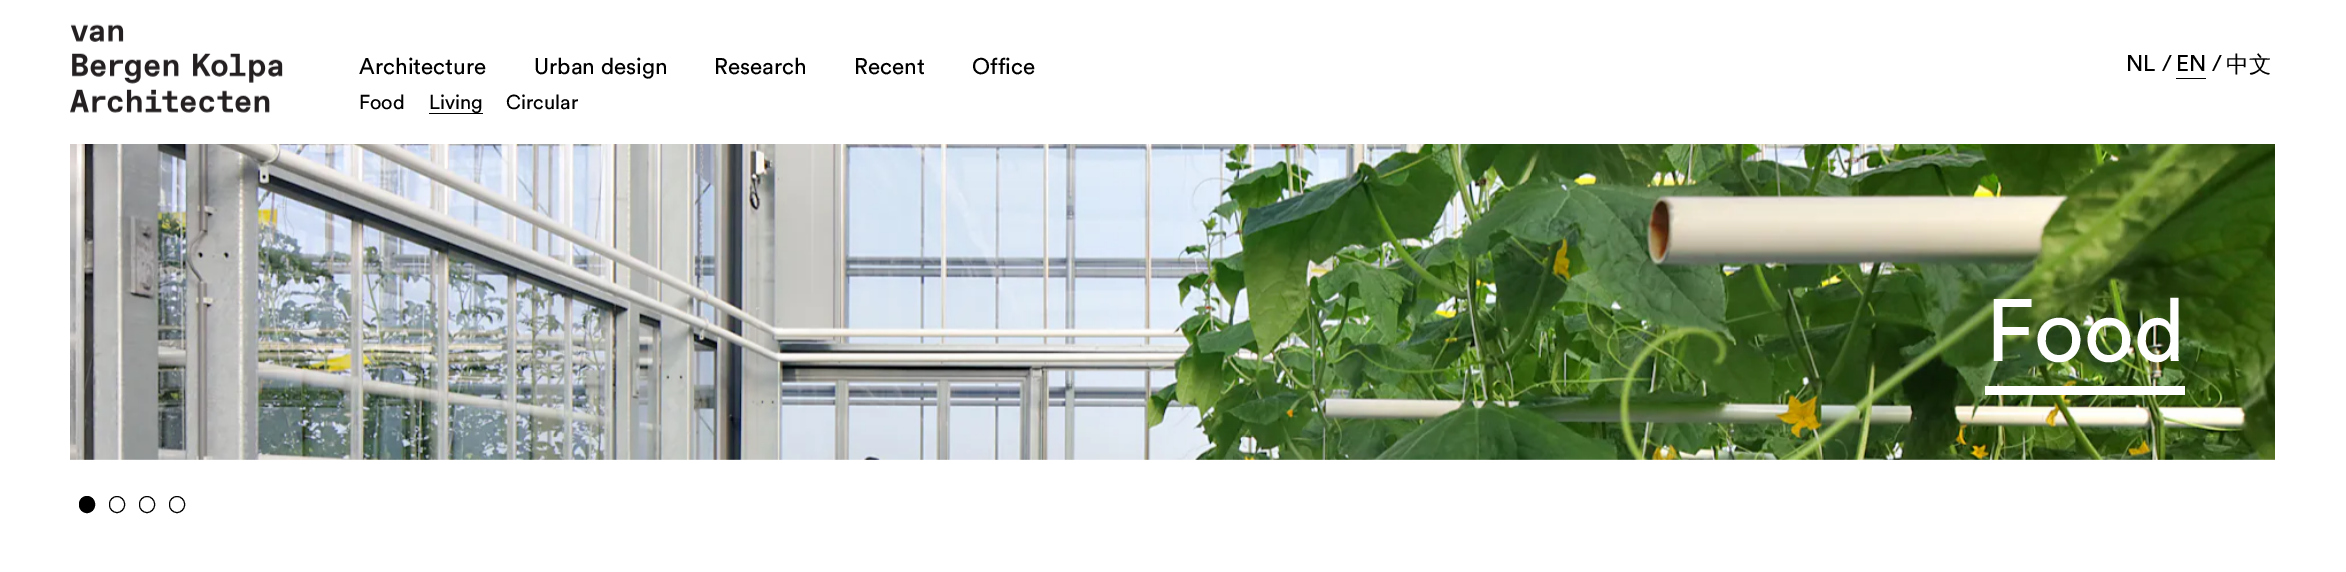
%!PS
<< /PageSize [2346 572] >> setpagedevice
/fl/fill load def
/st/stroke load def
/gs/gsave load def
/gr/grestore load def
/co { dup -16 bitshift 255 div exch dup -8 bitshift 255 and 255 div exch 255 and 255 div setrgbcolor } def
/fn { [ exch dup neg 0 0 3 -1 roll 0 0 ] selectfont } def
/tx { co fn moveto show } def
/bx { co rectfill } def
/rr { 5 dict begin { /r /h /w /y /x } { exch def } forall
  x r add y moveto x w add y 2 copy h add r arct x w add y h add x 1 index r arct
  x y h add x y r arct x y 2 copy exch w add exch r arct closepath end } def
/im { 5 dict begin { /h /w /y /x /name } { exch def } forall
  gsave x y translate w h scale
  w h 8 [w 0 0 h 0 0] name (r) file false 3 colorimage grestore end } def
0 572 translate 1 -1 scale
4 setmiterlimit
0 0 2346 572 16#FFFFFF bx
(media/1.raw) 70 24 213 89 im
429 113 54 1 16#000000 bx
2176 78 30 1 16#000000 bx
(media/2.raw) 70 144 2205 316 im
1985 386 200 9 16#FFFFFF bx
16#000000 co
79.5 496.5 15 16 7.5 rr gs fl gr
st
109.5 496.5 15 16 7.5 rr st
139.5 496.5 15 16 7.5 rr st
169.5 496.5 15 16 7.5 rr st
(Architecture) 359 74 /Circular-Regular 22.5 16#000000 tx
(Research) 714 74 /Circular-Regular 22.5 16#000000 tx
(Food) 359 109 /Circular-Regular 20 16#000000 tx
(Living) 429 109 /Circular-Regular 20 16#000000 tx
(Circular) 506 109 /Circular-Regular 20 16#000000 tx
(Urban design) 534 74 /Circular-Regular 22.5 16#000000 tx
(Recent) 854 74 /Circular-Regular 22.5 16#000000 tx
(Office) 972 74 /Circular-Regular 22.5 16#000000 tx
(NL) 2126 71 /Circular-Regular 22.5 16#000000 tx
(/) 2162 71 /Circular-Regular 22.5 16#000000 tx
(EN) 2176 71 /Circular-Regular 22.5 16#000000 tx
(/) 2212 71 /Circular-Regular 22.5 16#000000 tx
(中文) 2226 72 /WenQuanYiZenHei-Medium 22.5 16#000000 tx
(Food) 1986 361 /Circular-Regular 87.5 16#FFFFFF tx
showpage
